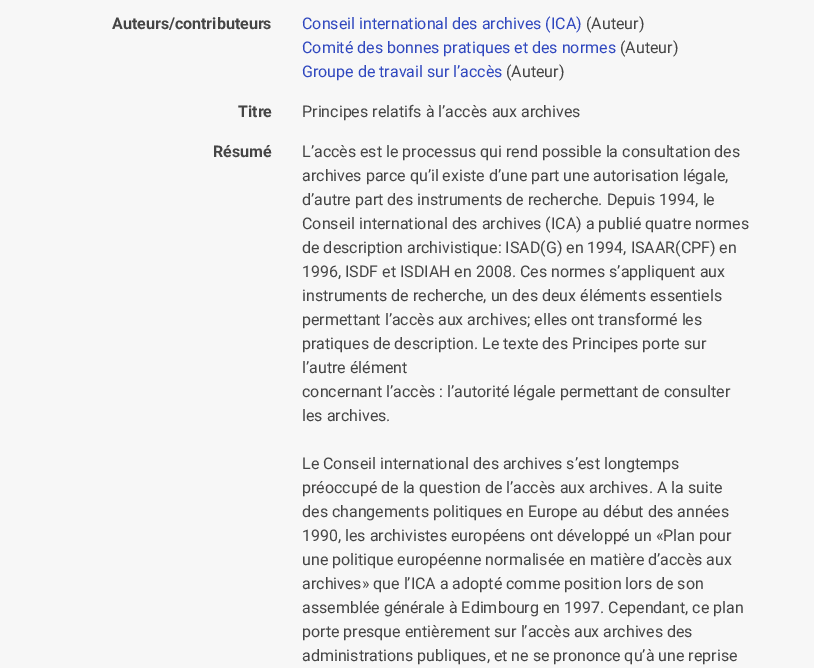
%!PS
<< /PageSize [814 668] >> setpagedevice
/co { dup -16 bitshift 255 div exch dup -8 bitshift 255 and 255 div exch 255 and 255 div setrgbcolor } def
/fn { [ exch dup neg 0 0 3 -1 roll 0 0 ] selectfont } def
/tx { co fn moveto show } def
/bx { co rectfill } def
0 668 translate 1 -1 scale
4 setmiterlimit
0 0 814 668 16#F7F7F7 bx
(Auteurs/contributeurs) 112 29 /Roboto-Bold 16 16#454545 tx
(Conseil international des archives \(ICA\)) 302 29 /Roboto-Regular 16 16#3048BF tx
(\(Auteur\)) 586 29 /Roboto-Regular 16 16#454545 tx
(Comité des bonnes pratiques et des normes) 302 53 /Roboto-Regular 16 16#3048BF tx
(\(Auteur\)) 620 53 /Roboto-Regular 16 16#454545 tx
(Groupe de travail sur l’accès) 302 77 /Roboto-Regular 16 16#3048BF tx
(\(Auteur\)) 506 77 /Roboto-Regular 16 16#454545 tx
(Titre) 238 117 /Roboto-Bold 16 16#454545 tx
(Principes relatifs à l’accès aux archives) 302 117 /Roboto-Regular 16 16#454545 tx
(Résumé) 213 157 /Roboto-Bold 16 16#454545 tx
(L’accès est le processus qui rend possible la consultation des) 302 157 /Roboto-Regular 16 16#454545 tx
(archives parce qu’il existe d’une part une autorisation légale,) 302 181 /Roboto-Regular 16 16#454545 tx
(d’autre part des instruments de recherche. Depuis 1994, le) 302 205 /Roboto-Regular 16 16#454545 tx
(Conseil international des archives \(ICA\) a publié quatre normes) 302 229 /Roboto-Regular 16 16#454545 tx
(de description archivistique: ISAD\(G\) en 1994, ISAAR\(CPF\) en) 302 253 /Roboto-Regular 16 16#454545 tx
(1996, ISDF et ISDIAH en 2008. Ces normes s’appliquent aux) 302 277 /Roboto-Regular 16 16#454545 tx
(instruments de recherche, un des deux éléments essentiels) 302 301 /Roboto-Regular 16 16#454545 tx
(permettant l’accès aux archives; elles ont transformé les) 302 325 /Roboto-Regular 16 16#454545 tx
(pratiques de description. Le texte des Principes porte sur) 302 349 /Roboto-Regular 16 16#454545 tx
(l’autre élément) 302 373 /Roboto-Regular 16 16#454545 tx
(concernant l’accès : l’autorité légale permettant de consulter) 302 397 /Roboto-Regular 16 16#454545 tx
(les archives.) 302 421 /Roboto-Regular 16 16#454545 tx
(Le Conseil international des archives s’est longtemps) 302 469 /Roboto-Regular 16 16#454545 tx
(préoccupé de la question de l’accès aux archives. A la suite) 302 493 /Roboto-Regular 16 16#454545 tx
(des changements politiques en Europe au début des années) 302 517 /Roboto-Regular 16 16#454545 tx
(1990, les archivistes européens ont développé un «Plan pour) 302 541 /Roboto-Regular 16 16#454545 tx
(une politique européenne normalisée en matière d’accès aux) 302 565 /Roboto-Regular 16 16#454545 tx
(archives» que l’ICA a adopté comme position lors de son) 302 589 /Roboto-Regular 16 16#454545 tx
(assemblée générale à Edimbourg en 1997. Cependant, ce plan) 302 613 /Roboto-Regular 16 16#454545 tx
(porte presque entièrement sur l’accès aux archives des) 302 637 /Roboto-Regular 16 16#454545 tx
(administrations publiques, et ne se prononce qu’à une reprise) 302 661 /Roboto-Regular 16 16#454545 tx
showpage
